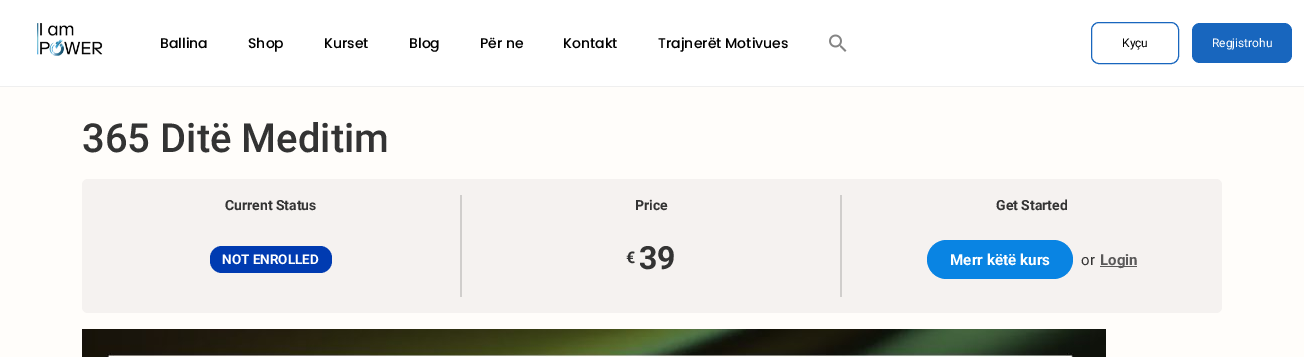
%!PS
<< /PageSize [1304 357] >> setpagedevice
/mt/moveto load def
/li/lineto load def
/cp/closepath load def
/fl/fill load def
/st/stroke load def
/co { dup -16 bitshift 255 div exch dup -8 bitshift 255 and 255 div exch 255 and 255 div setrgbcolor } def
/fn { [ exch dup neg 0 0 3 -1 roll 0 0 ] selectfont } def
/tx { co fn moveto show } def
/bx { co rectfill } def
/rr { 5 dict begin { /r /h /w /y /x } { exch def } forall
  x r add y moveto x w add y 2 copy h add r arct x w add y h add x 1 index r arct
  x y h add x y r arct x y 2 copy exch w add exch r arct closepath end } def
/im { 5 dict begin { /h /w /y /x /name } { exch def } forall
  gsave x y translate w h scale
  w h 8 [w 0 0 h 0 0] name (r) file false 3 colorimage grestore end } def
0 357 translate 1 -1 scale
4 setmiterlimit
0 0 1304 357 16#FFFDFA bx
0 0 1304 86 16#FFFFFF bx
0 86 1304 1 16#EFEFEF bx
(media/1.raw) 37 23 66 33 im
(media/2.raw) 829 34 18 18 im
16#1866BE co
1091.5 22.5 87 41 7.5 rr st
1192 23 100 40 8 rr fl
16#F5F2F0 co
82 179 1140 134 6 rr fl
460 195 2 102 16#D0CECC bx
16#003BB1 co
210 246 122 27 12 rr fl
840 195 2 102 16#D0CECC bx
16#0984E3 co
927 240 146 39 19.5 rr fl
1100 266 37 1 16#5A5959 bx
(media/3.raw) 82 329 1024 28 im
(Ballina) 160 48 /Poppins-Medium 14 16#000000 tx
(Shop) 248 48 /Poppins-Medium 14 16#000000 tx
(Kurset) 324 48 /Poppins-Medium 14 16#000000 tx
(Blog) 409 48 /Poppins-Medium 14 16#000000 tx
(Për ne) 480 48 /Poppins-Medium 14 16#000000 tx
(Kontakt) 563 48 /Poppins-Medium 14 16#000000 tx
(Trajnerët Motivues) 658 48 /Poppins-Medium 14 16#000000 tx
(Kyçu) 1122 47 /Roboto-Regular 12 16#000000 tx
(Regjistrohu) 1212 47 /Roboto-Regular 12 16#FFFFFF tx
(365 Ditë Meditim) 82 152 /Roboto-Medium 40 16#333333 tx
(Current Status) 225 210 /Roboto-Bold 14 16#333333 tx
(NOT ENROLLED) 222 264 /Roboto-Bold 13.5 16#FFFFFF tx
(Price) 635 210 /Roboto-Bold 14 16#333333 tx
(€) 626 263 /Roboto-Bold 16 16#333333 tx
(39) 639 269 /Roboto-Bold 32 16#333333 tx
(Get Started) 996 210 /Roboto-Bold 14 16#333333 tx
(Merr këtë kurs) 950 265 /Roboto-Bold 15.25 16#FFFFFF tx
(or) 1081 265 /Roboto-Regular 15 16#333333 tx
(Login) 1100 265 /Roboto-Bold 15 16#5A5959 tx
16#003BB1 co
222.5 250.5 mt 222 251 li 225.5 254.5 li 229 251 li 228.5 250.5 li 225.5 253.5 li cp fl
showpage
